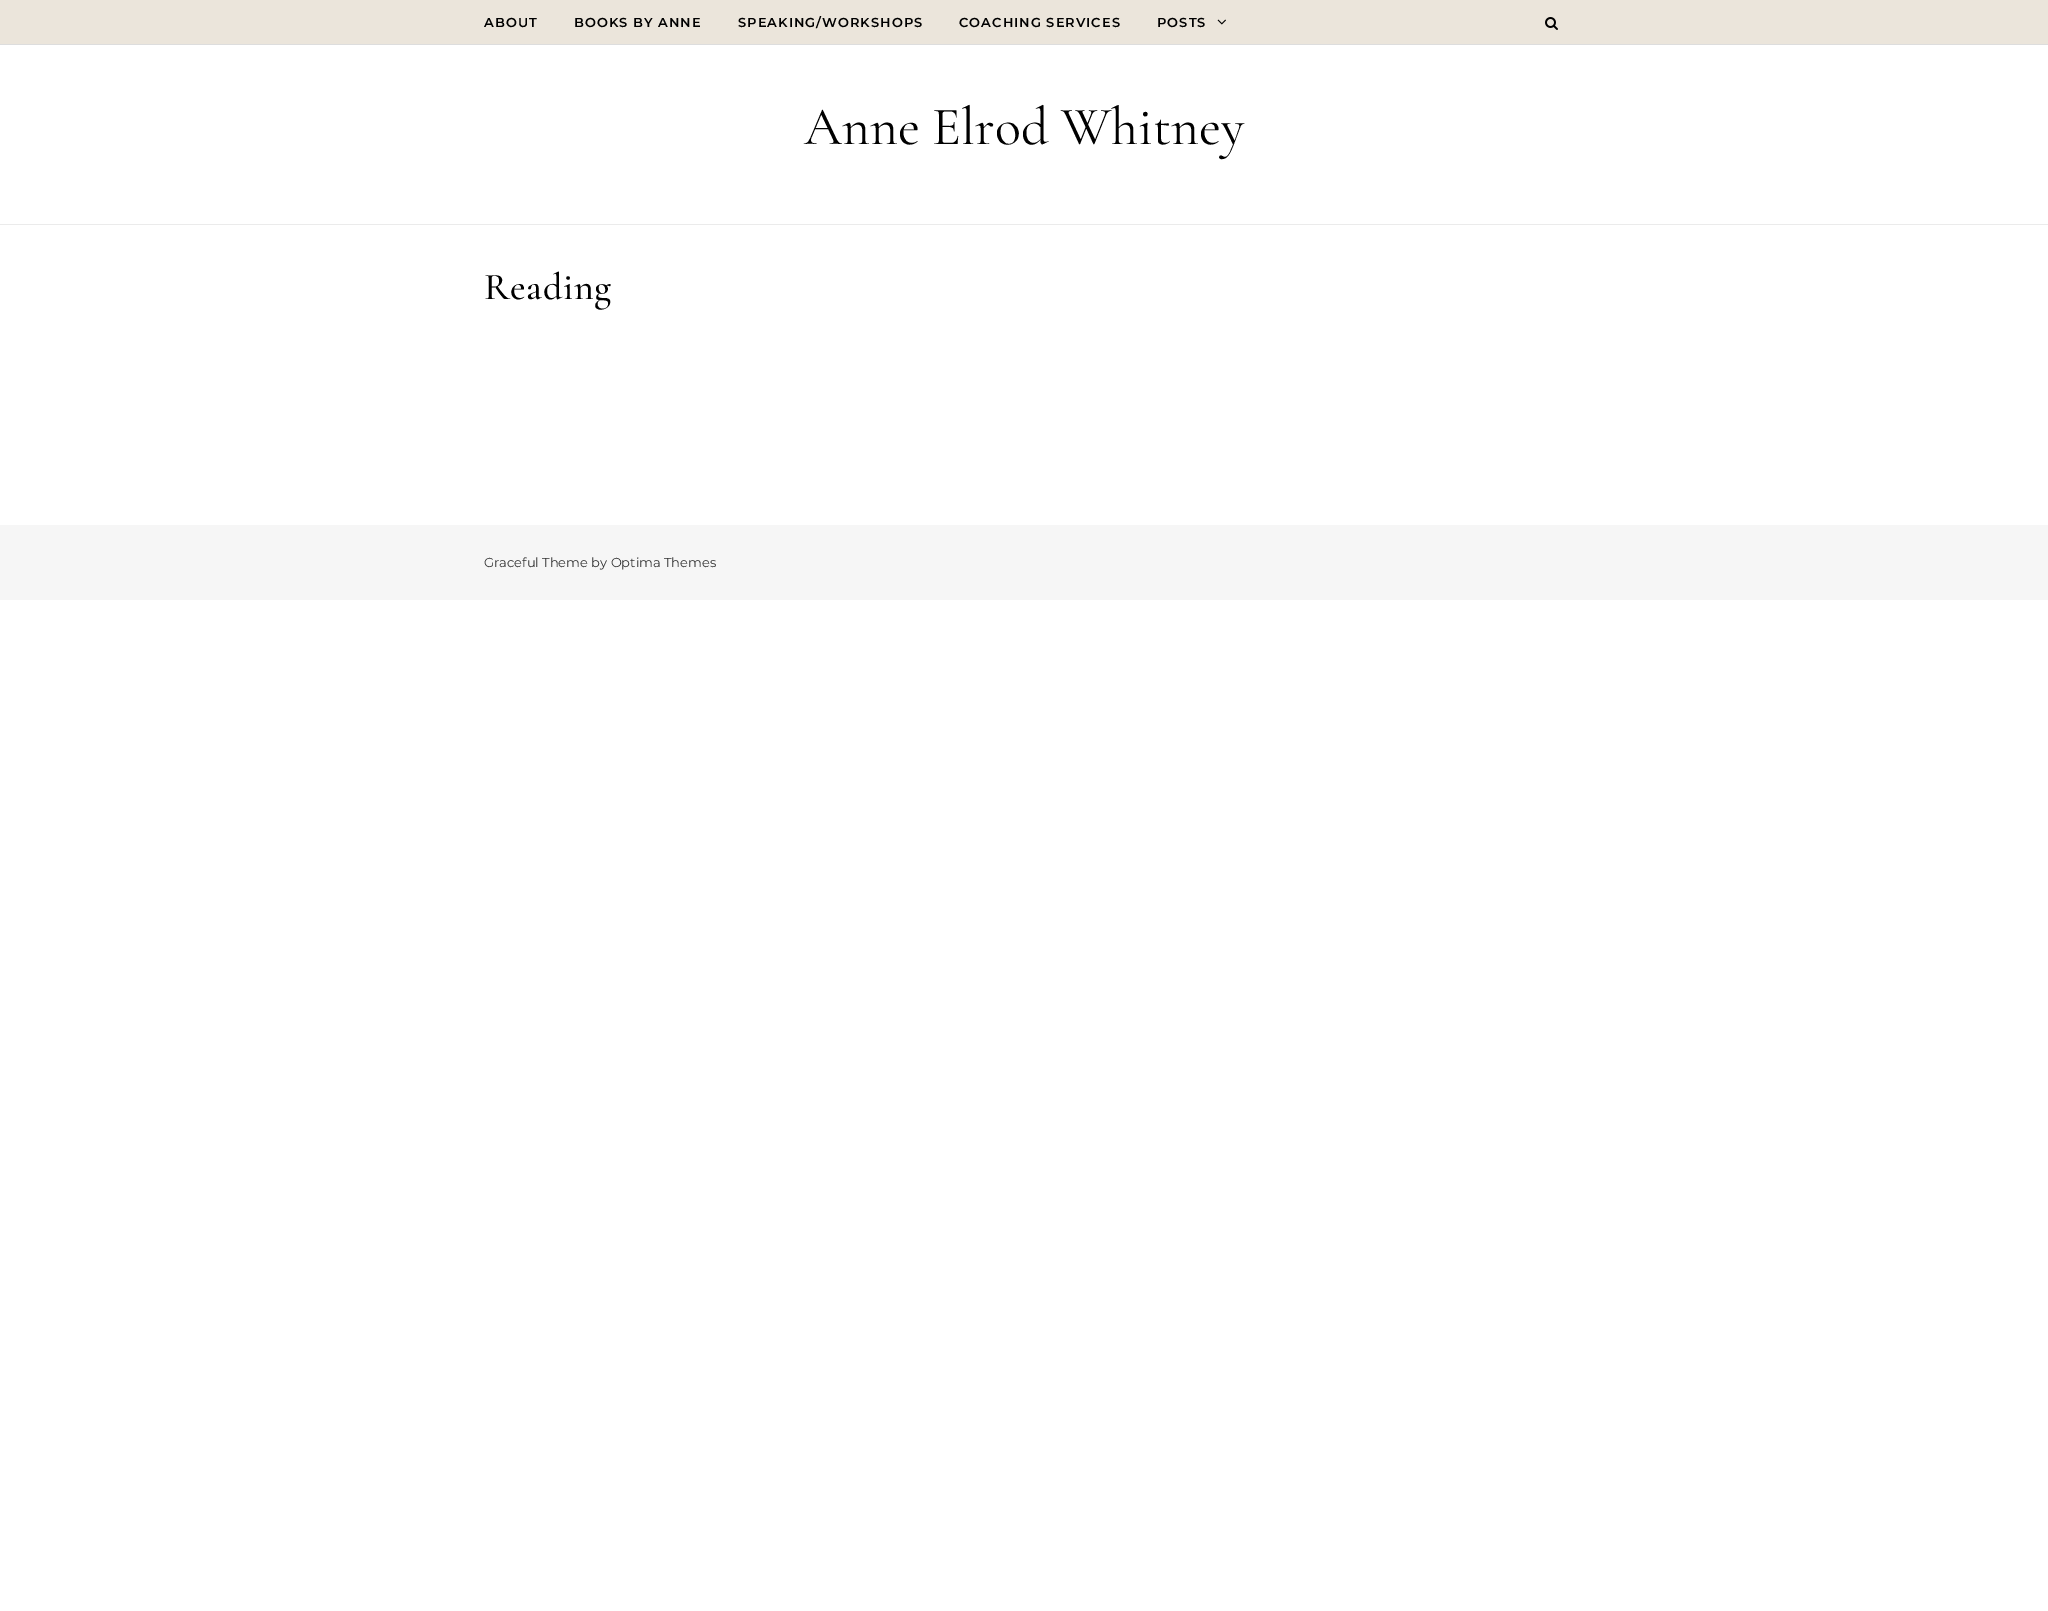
%!PS
<< /PageSize [2048 1611] >> setpagedevice
/mt/moveto load def
/co { dup -16 bitshift 255 div exch dup -8 bitshift 255 and 255 div exch 255 and 255 div setrgbcolor } def
/fn { [ exch dup neg 0 0 3 -1 roll 0 0 ] selectfont } def
/tx { co fn moveto show } def
/bx { co rectfill } def
/im { 5 dict begin { /h /w /y /x /name } { exch def } forall
  gsave x y translate w h scale
  w h 8 [w 0 0 h 0 0] name (r) file false 3 colorimage grestore end } def
0 1611 translate 1 -1 scale
4 setmiterlimit
0 0 2048 1611 16#FFFFFF bx
0 0 2048 44 16#EBE5DB bx
0 44 2048 1 16#DDDDDD bx
(media/1.raw) 1217 19 9 6 im
(media/2.raw) 1545 17 13 13 im
0 224 2048 1 16#EBEBEB bx
0 525 2048 75 16#F6F6F6 bx
/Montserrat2-Thin 13 fn
16#000000 co
484 27 mt 1 0 (ABOUT) ashow
574 27 mt 1 0 (BOOKS BY ANNE) ashow
738 27 mt 1 0 (SPEAKING/WORKSHOPS) ashow
959 27 mt 1 0 (COACHING SERVICES) ashow
1157 27 mt 1 0 (POSTS) ashow
(Anne Elrod Whitney) 804 144 /CormorantGaramond-Regular 54 16#000000 tx
/CormorantGaramond-Medium 38 fn
484 299 mt .5 0 (Reading) ashow
(Graceful Theme by Optima Themes) 484 567 /Montserrat-Thin 13 16#333333 tx
showpage
